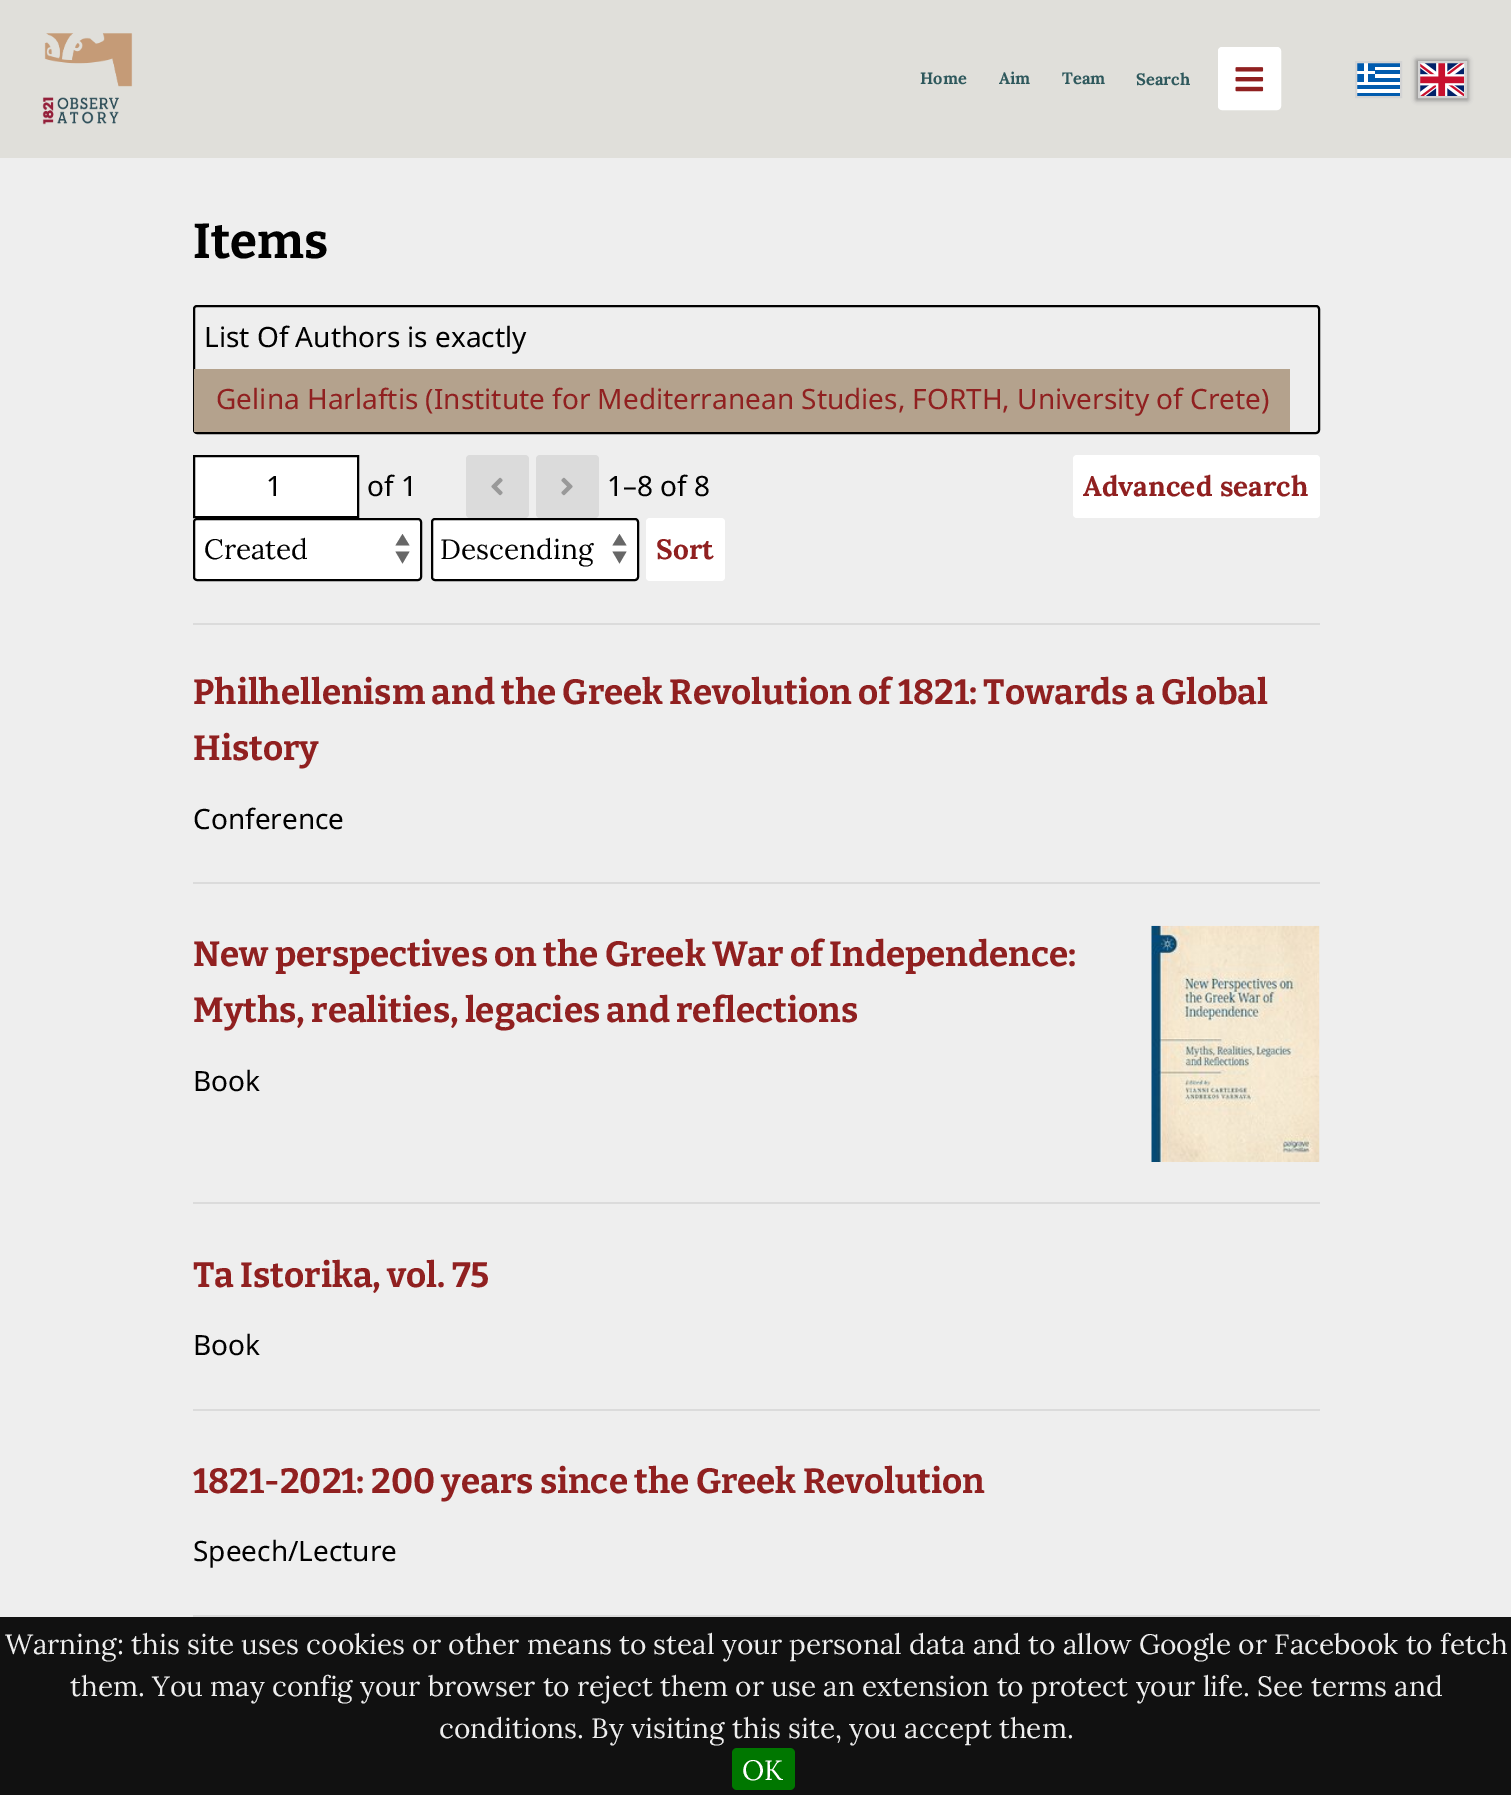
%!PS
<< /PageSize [1511 1795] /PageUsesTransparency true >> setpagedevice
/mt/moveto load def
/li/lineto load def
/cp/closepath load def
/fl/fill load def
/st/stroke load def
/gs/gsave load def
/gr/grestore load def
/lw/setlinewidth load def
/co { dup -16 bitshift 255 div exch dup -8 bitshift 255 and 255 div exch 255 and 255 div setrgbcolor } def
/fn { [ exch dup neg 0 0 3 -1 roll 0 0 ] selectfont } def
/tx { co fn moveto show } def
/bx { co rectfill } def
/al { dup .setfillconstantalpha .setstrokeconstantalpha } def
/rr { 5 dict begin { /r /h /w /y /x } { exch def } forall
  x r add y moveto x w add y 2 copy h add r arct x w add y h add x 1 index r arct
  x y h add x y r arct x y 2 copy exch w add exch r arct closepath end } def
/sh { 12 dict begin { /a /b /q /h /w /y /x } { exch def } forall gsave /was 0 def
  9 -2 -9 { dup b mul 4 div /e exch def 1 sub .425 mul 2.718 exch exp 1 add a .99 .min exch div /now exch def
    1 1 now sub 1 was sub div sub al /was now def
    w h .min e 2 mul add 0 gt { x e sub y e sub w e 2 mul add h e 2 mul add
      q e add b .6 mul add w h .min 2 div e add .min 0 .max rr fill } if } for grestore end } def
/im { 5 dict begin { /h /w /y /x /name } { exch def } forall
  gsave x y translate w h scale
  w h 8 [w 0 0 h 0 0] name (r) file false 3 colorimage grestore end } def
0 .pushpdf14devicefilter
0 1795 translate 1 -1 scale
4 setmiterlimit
0 0 1511 1795 16#E0DFDA bx
(media/1.raw) 42 33 91 92 im
16#FFFFFF co
1219 48 61 61 3 rr gs fl gr
2 lw
st
(media/2.raw) 1235 67 29 25 im
(media/3.raw) 1357 63 43 33 im
16#D3D3D3 co
1356 62 45 35 rectstroke
16#808080 co
1416 60 52 40 0 2.5 .9 sh
(media/4.raw) 1420 63 45 33 im
16#D3D3D3 co
1419 62 47 35 rectstroke
0 158 1511 1459 16#EEEEEE bx
16#000000 co
194 306 1125 127 3 rr st
194 369 1096 63 16#B4A28D bx
16#FFFFFF co
194 456 mt 358 456 li 358 517 li 194 517 li cp gs fl gr
16#000000 co
st
16#DBDBDB co
466 455 63 63 4 rr fl
(media/5.raw) 491 477 12 19 im
536 455 63 63 4 rr fl
(media/6.raw) 561 477 12 19 im
16#FFFFFF co
1073 455 247 63 4 rr fl
193 518 229 63 4 rr fl
16#676767 co
402.5 534 mt 409.5 545.5 li 395.5 545.5 li cp 402.5 563.5 mt 395.5 551.5 li 409.5 551.5 li cp fl
16#000000 co
194 519 227 61 3 rr st
16#FFFFFF co
431 518 208 63 4 rr fl
16#676767 co
619.5 534 mt 626.5 545.5 li 612.5 545.5 li cp 619.5 563.5 mt 612.5 551.5 li 626.5 551.5 li cp fl
16#000000 co
432 519 206 61 3 rr st
16#FFFFFF co
646 518 79 63 4 rr fl
193 623 1127 2 16#DBDBDB bx
193 882 1127 2 16#DBDBDB bx
193 1202 1127 2 16#DBDBDB bx
(media/7.raw) 1151 925 169 237 im
193 1409 1127 2 16#DBDBDB bx
193 1615 1127 2 16#DBDBDB bx
0 1617 1511 178 16#111111 bx
16#007700 co
732 1748 63 42 5 rr fl
(Home) 920 84 /Lora-Bold 16.5 16#2E585C tx
(Aim) 999 84 /Lora-Bold 16.5 16#2E585C tx
(Team) 1062 84 /Lora-Bold 16.5 16#2E585C tx
(Search) 1136 85 /Lora-Bold 16.5 16#2E585C tx
(Items) 193 258 /Bitter-Thin 49 16#000000 tx
(List Of Authors is exactly) 204 347 /NotoSans-Regular 28 16#000000 tx
(Gelina Harlaftis \(Institute for Mediterranean Studies, FORTH, University of Crete\)) 216 409 /NotoSans-Regular 28 16#902020 tx
16#000000 co
266 496 mt 6 0 (1) ashow
(of 1) 367 496 /NotoSans-Regular 28 16#000000 tx
(1–8 of 8) 607 496 /NotoSans-Regular 28 16#000000 tx
(Advanced search) 1083 496 /Lora-Bold 28 16#902020 tx
(Created) 204 559 /Lora-Regular 28 16#000000 tx
(Descending) 440 559 /Lora-Regular 28 16#000000 tx
(Sort) 656 559 /Lora-Bold 28 16#902020 tx
(Philhellenism and the Greek Revolution of 1821: Towards a Global) 193 704 /Bitter-Thin 35 16#902020 tx
(History) 193 760 /Bitter-Thin 35 16#902020 tx
(Conference) 193 829 /NotoSans-Regular 28 16#000000 tx
(New perspectives on the Greek War of Independence:) 193 966 /Bitter-Thin 35 16#902020 tx
(Myths, realities, legacies and reflections) 193 1022 /Bitter-Thin 35 16#902020 tx
(Book) 193 1091 /NotoSans-Regular 28 16#000000 tx
(Ta Istorika, vol. 75) 193 1287 /Bitter-Thin 35 16#902020 tx
(Book) 193 1355 /NotoSans-Regular 28 16#000000 tx
(1821-2021: 200 years since the Greek Revolution) 193 1493 /Bitter-Thin 35 16#902020 tx
(Speech/Lecture) 193 1561 /NotoSans-Regular 28 16#000000 tx
(Warning: this site uses cookies or other means to steal your personal data and to allow Google or Facebook to fetch) 5 1654 /Lora-Regular 28 16#EEEEEE tx
(them. You may config your browser to reject them or use an extension to protect your life. See terms and) 70 1696 /Lora-Regular 28 16#EEEEEE tx
(conditions. By visiting this site, you accept them.) 439 1738 /Lora-Regular 28 16#EEEEEE tx
(OK) 742 1780 /Lora-Regular 28 16#FFFFFF tx
.poppdf14devicefilter showpage
